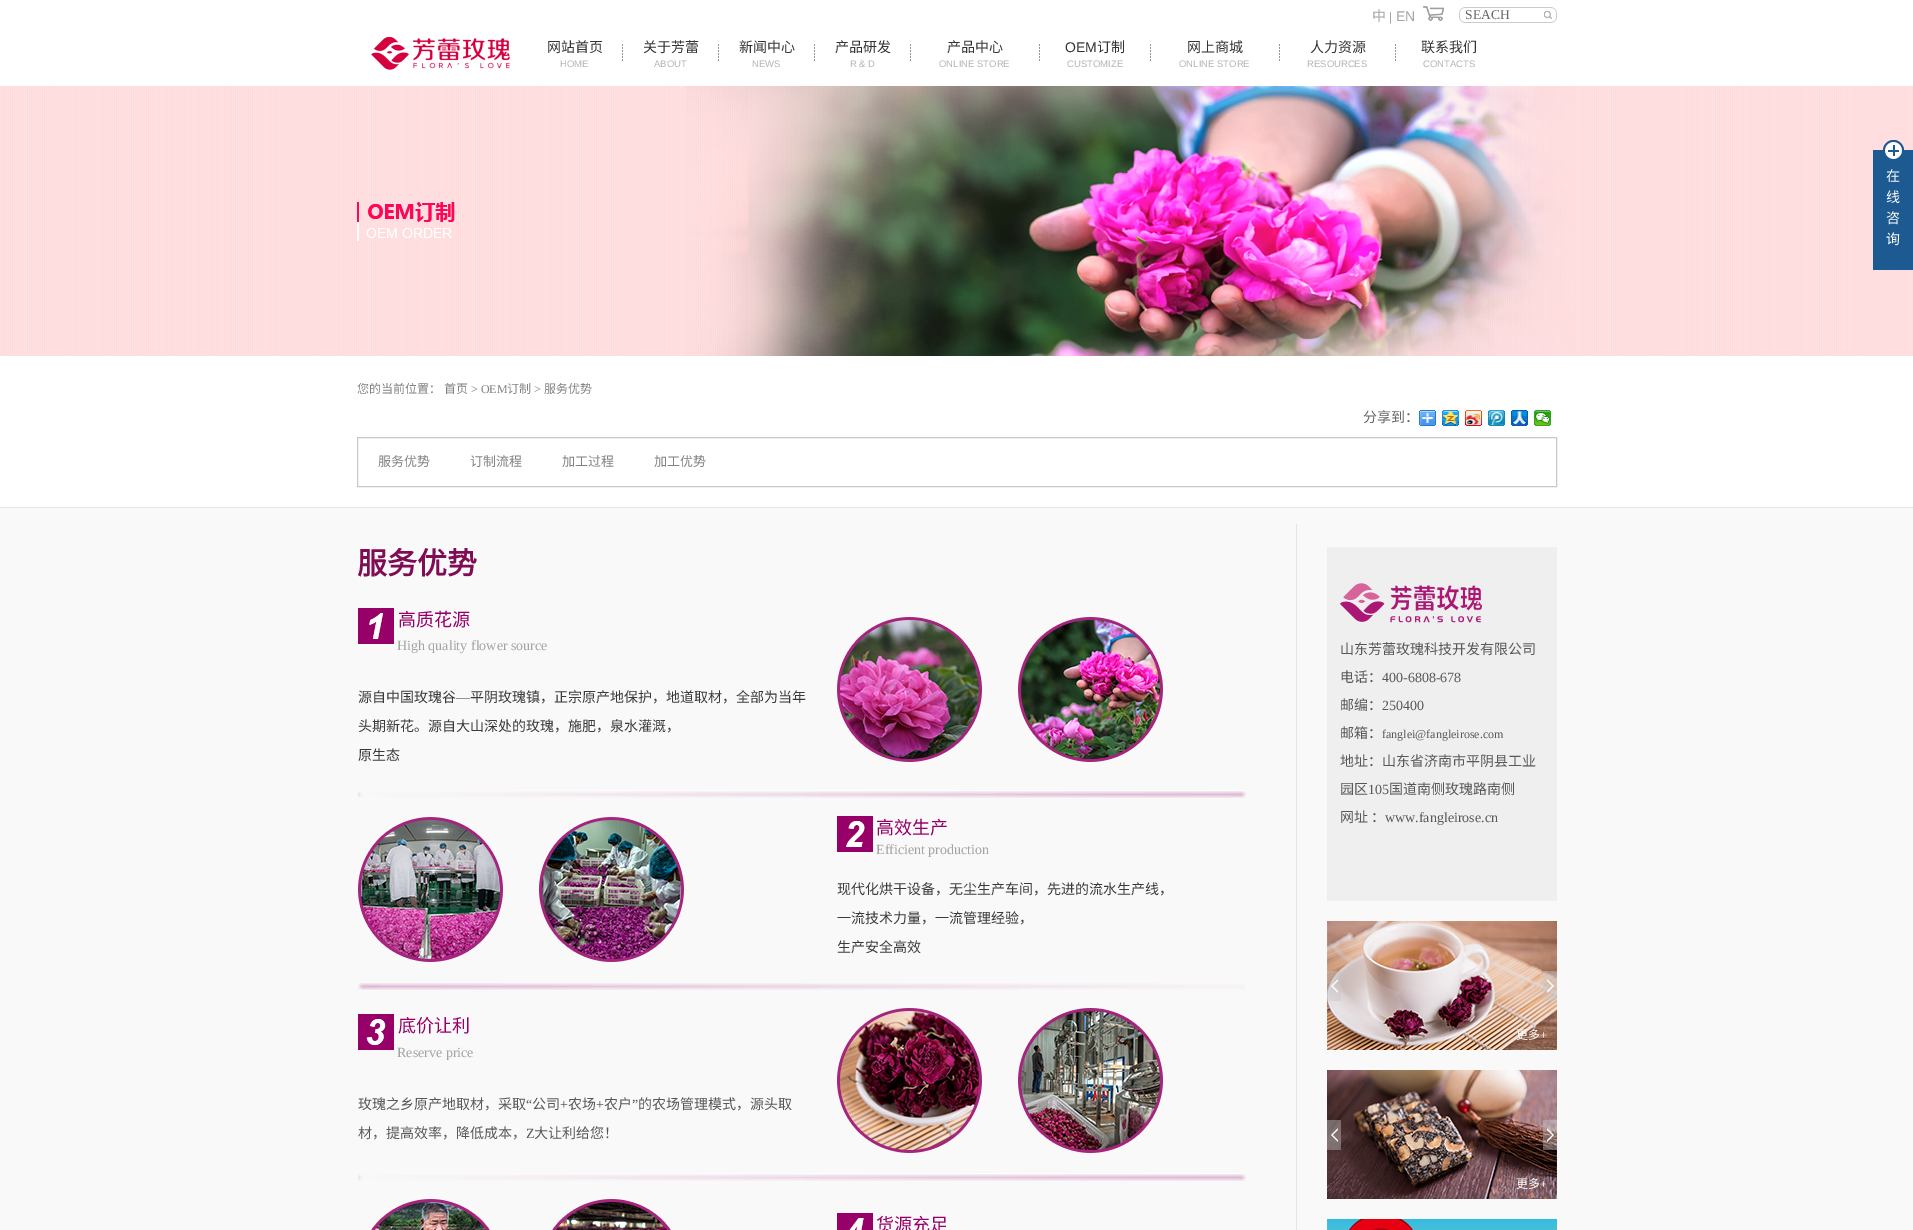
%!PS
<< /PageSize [1913 1230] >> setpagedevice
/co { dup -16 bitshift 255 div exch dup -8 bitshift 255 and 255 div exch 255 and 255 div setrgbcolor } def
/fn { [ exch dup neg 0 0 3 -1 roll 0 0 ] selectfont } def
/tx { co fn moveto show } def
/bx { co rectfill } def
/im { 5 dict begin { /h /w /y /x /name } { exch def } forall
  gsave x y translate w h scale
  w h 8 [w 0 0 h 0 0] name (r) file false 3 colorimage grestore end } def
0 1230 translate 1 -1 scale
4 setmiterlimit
0 0 1913 1230 16#FFFFFF bx
(media/1.raw) 371 37 139 33 im
(media/2.raw) 1423 6 21 15 im
(media/3.raw) 1459 7 98 16 im
(media/4.raw) 622 44 1 17 im
(media/4.raw) 718 44 1 17 im
(media/4.raw) 814 44 1 17 im
(media/4.raw) 910 44 1 17 im
(media/4.raw) 1039 44 1 17 im
(media/4.raw) 1150 44 1 17 im
(media/4.raw) 1279 44 1 17 im
(media/4.raw) 1395 44 1 17 im
(media/5.raw) 0 86 1913 270 im
(media/6.raw) 1883 140 21 10 im
1873 150 40 120 16#1C5A91 bx
(media/7.raw) 1883 140 21 19 im
(media/8.raw) 1419 410 17 16 im
(media/9.raw) 1442 410 17 16 im
(media/10.raw) 1465 410 17 16 im
(media/11.raw) 1488 410 17 16 im
(media/12.raw) 1511 410 17 16 im
(media/13.raw) 1534 410 17 16 im
16#C9C9C9 co
357.5 437.5 1199 49 rectstroke
0 508 1913 722 16#F9F9F9 bx
0 507 1913 1 16#E5E5E5 bx
(media/14.raw) 358 608 36 36 im
(media/15.raw) 837 617 326 145 im
(media/16.raw) 358 790 888 8 im
(media/17.raw) 358 817 326 145 im
(media/18.raw) 837 816 36 36 im
(media/19.raw) 358 983 887 7 im
(media/20.raw) 358 1014 36 36 im
(media/21.raw) 837 1008 326 145 im
(media/16.raw) 358 1173 888 8 im
(media/22.raw) 371 1199 300 31 im
(media/23.raw) 837 1213 36 17 im
1296 524 1 706 16#E5E5E5 bx
1327 547 230 354 16#EFEFEF bx
(media/24.raw) 1340 583 143 40 im
(media/27.raw) 1327 921 230 129 im
(media/25.raw) 1327 971 14 30 im
(media/26.raw) 1543 971 14 30 im
(media/30.raw) 1327 1070 230 129 im
(media/28.raw) 1327 1120 14 30 im
(media/29.raw) 1543 1120 14 30 im
(media/31.raw) 1327 1219 230 11 im
(中) 1372 21 /NotoSansCJKSC-Regular 14 16#A3A3A3 tx
(|) 1389 21 /LiberationSans-Regular 12 16#A3A3A3 tx
(EN) 1396 21 /LiberationSans-Regular 14 16#A3A3A3 tx
(SEACH) 1465 19 /LiberationSerif-Regular 13.5 16#666666 tx
(网站首页) 547 52 /NotoSansCJKSC-Regular 14 16#333333 tx
(HOME) 560 67 /LiberationSans-Regular 9.5 16#B5B5B5 tx
(关于芳蕾) 643 52 /NotoSansCJKSC-Regular 14 16#333333 tx
(ABOUT) 654 67 /LiberationSans-Regular 9.5 16#B5B5B5 tx
(新闻中心) 739 52 /NotoSansCJKSC-Regular 14 16#333333 tx
(NEWS) 752 67 /LiberationSans-Regular 9.5 16#B5B5B5 tx
(产品研发) 835 52 /NotoSansCJKSC-Regular 14 16#333333 tx
(R & D) 850 67 /LiberationSans-Regular 9.5 16#B5B5B5 tx
(产品中心) 947 52 /NotoSansCJKSC-Regular 14 16#333333 tx
(ONLINE STORE) 939 67 /LiberationSans-Regular 9.5 16#B5B5B5 tx
(OEM) 1065 52 /LiberationSans-Regular 14 16#333333 tx
(订制) 1097 52 /NotoSansCJKSC-Regular 14 16#333333 tx
(CUSTOMIZE) 1067 67 /LiberationSans-Regular 9.5 16#B5B5B5 tx
(网上商城) 1187 52 /NotoSansCJKSC-Regular 14 16#333333 tx
(ONLINE STORE) 1179 67 /LiberationSans-Regular 9.5 16#B5B5B5 tx
(人力资源) 1310 52 /NotoSansCJKSC-Regular 14 16#333333 tx
(RESOURCES) 1307 67 /LiberationSans-Regular 9.5 16#B5B5B5 tx
(联系我们) 1421 52 /NotoSansCJKSC-Regular 14 16#333333 tx
(CONTACTS) 1423 67 /LiberationSans-Regular 9.5 16#B5B5B5 tx
(在) 1886 181 /NotoSansCJKSC-Regular 14 16#FFFFFF tx
(线) 1886 202 /NotoSansCJKSC-Regular 14 16#FFFFFF tx
(咨) 1886 223 /NotoSansCJKSC-Regular 14 16#FFFFFF tx
(询) 1886 244 /NotoSansCJKSC-Regular 14 16#FFFFFF tx
(您的当前位置：) 357 393 /NotoSansCJKSC-Regular 12 16#828282 tx
(首页) 444 393 /NotoSansCJKSC-Regular 12 16#828282 tx
(> OEM) 471 393 /LiberationSerif-Regular 12 16#828282 tx
(订制) 507 393 /NotoSansCJKSC-Regular 12 16#828282 tx
(>) 534 393 /LiberationSerif-Regular 12 16#828282 tx
(服务优势) 544 393 /NotoSansCJKSC-Regular 12 16#828282 tx
(分享到：) 1363 422 /NotoSansCJKSC-Regular 14 16#666666 tx
(服务优势) 378 466 /NotoSansCJKSC-Regular 13 16#828282 tx
(订制流程) 470 466 /NotoSansCJKSC-Regular 13 16#828282 tx
(加工过程) 562 466 /NotoSansCJKSC-Regular 13 16#828282 tx
(加工优势) 654 466 /NotoSansCJKSC-Regular 13 16#828282 tx
(服务优势) 357 574 /NotoSansCJKSC-Bold 30 16#7F0C55 tx
(高质花源) 398 626 /NotoSansCJKSC-Regular 18 16#970068 tx
(High quality flower source) 397 650 /LiberationSerif-Regular 14 16#A3A3A3 tx
(源自中国玫瑰谷) 358 702 /NotoSansCJKSC-Regular 14 16#3A3A3A tx
(—) 456 702 /LiberationSerif-Regular 14 16#3A3A3A tx
(平阴玫瑰镇，正宗原产地保护，地道取材，全部为当年) 470 702 /NotoSansCJKSC-Regular 14 16#3A3A3A tx
(头期新花。源自大山深处的玫瑰，施肥，泉水灌溉，) 358 731 /NotoSansCJKSC-Regular 14 16#3A3A3A tx
(原生态) 358 760 /NotoSansCJKSC-Regular 14 16#3A3A3A tx
(高效生产) 876 834 /NotoSansCJKSC-Regular 18 16#970068 tx
(Efficient production) 876 854 /LiberationSerif-Regular 14 16#A3A3A3 tx
(现代化烘干设备，无尘生产车间，先进的流水生产线，) 837 894 /NotoSansCJKSC-Regular 14 16#3A3A3A tx
(一流技术力量，一流管理经验，) 837 923 /NotoSansCJKSC-Regular 14 16#3A3A3A tx
(生产安全高效) 837 952 /NotoSansCJKSC-Regular 14 16#3A3A3A tx
(底价让利) 398 1032 /NotoSansCJKSC-Regular 18 16#970068 tx
(Reserve price) 397 1057 /LiberationSerif-Regular 14 16#A3A3A3 tx
(玫瑰之乡原产地取材，采取) 358 1109 /NotoSansCJKSC-Regular 14 16#585858 tx
(“) 526 1109 /LiberationSerif-Regular 14 16#585858 tx
(公司) 532 1109 /NotoSansCJKSC-Regular 14 16#585858 tx
(+) 560 1109 /LiberationSerif-Regular 14 16#585858 tx
(农场) 568 1109 /NotoSansCJKSC-Regular 14 16#585858 tx
(+) 596 1109 /LiberationSerif-Regular 14 16#585858 tx
(农户) 604 1109 /NotoSansCJKSC-Regular 14 16#585858 tx
(”) 632 1109 /LiberationSerif-Regular 14 16#585858 tx
(的农场管理模式，源头取) 638 1109 /NotoSansCJKSC-Regular 14 16#585858 tx
(材，提高效率，降低成本，) 358 1138 /NotoSansCJKSC-Regular 14 16#585858 tx
(Z) 526 1138 /LiberationSerif-Regular 14 16#585858 tx
(大让利给您！) 534 1138 /NotoSansCJKSC-Regular 14 16#585858 tx
(货源充足) 876 1231 /NotoSansCJKSC-Regular 18 16#970068 tx
(山东芳蕾玫瑰科技开发有限公司) 1340 654 /NotoSansCJKSC-Regular 14 16#585858 tx
(电话：) 1340 682 /NotoSansCJKSC-Regular 14 16#585858 tx
(400-6808-678) 1382 682 /LiberationSerif-Regular 14 16#585858 tx
(邮编：) 1340 710 /NotoSansCJKSC-Regular 14 16#585858 tx
(250400) 1382 710 /LiberationSerif-Regular 14 16#585858 tx
(邮箱：) 1340 738 /NotoSansCJKSC-Regular 14 16#585858 tx
(fanglei@fangleirose.com) 1382 738 /LiberationSerif-Regular 12 16#585858 tx
(地址：山东省济南市平阴县工业) 1340 766 /NotoSansCJKSC-Regular 14 16#585858 tx
(园区) 1340 794 /NotoSansCJKSC-Regular 14 16#585858 tx
(105) 1368 794 /LiberationSerif-Regular 14 16#585858 tx
(国道南侧玫瑰路南侧) 1389 794 /NotoSansCJKSC-Regular 14 16#585858 tx
(网址 ：) 1340 822 /NotoSansCJKSC-Regular 14 16#585858 tx
(www.fangleirose.cn) 1385 822 /LiberationSerif-Regular 14 16#585858 tx
(更多) 1516 1039 /NotoSansCJKSC-Regular 12 16#FFFFFF tx
(+) 1540 1039 /LiberationSerif-Regular 12 16#FFFFFF tx
(更多) 1516 1188 /NotoSansCJKSC-Regular 12 16#FFFFFF tx
(+) 1540 1188 /LiberationSerif-Regular 12 16#FFFFFF tx
showpage
